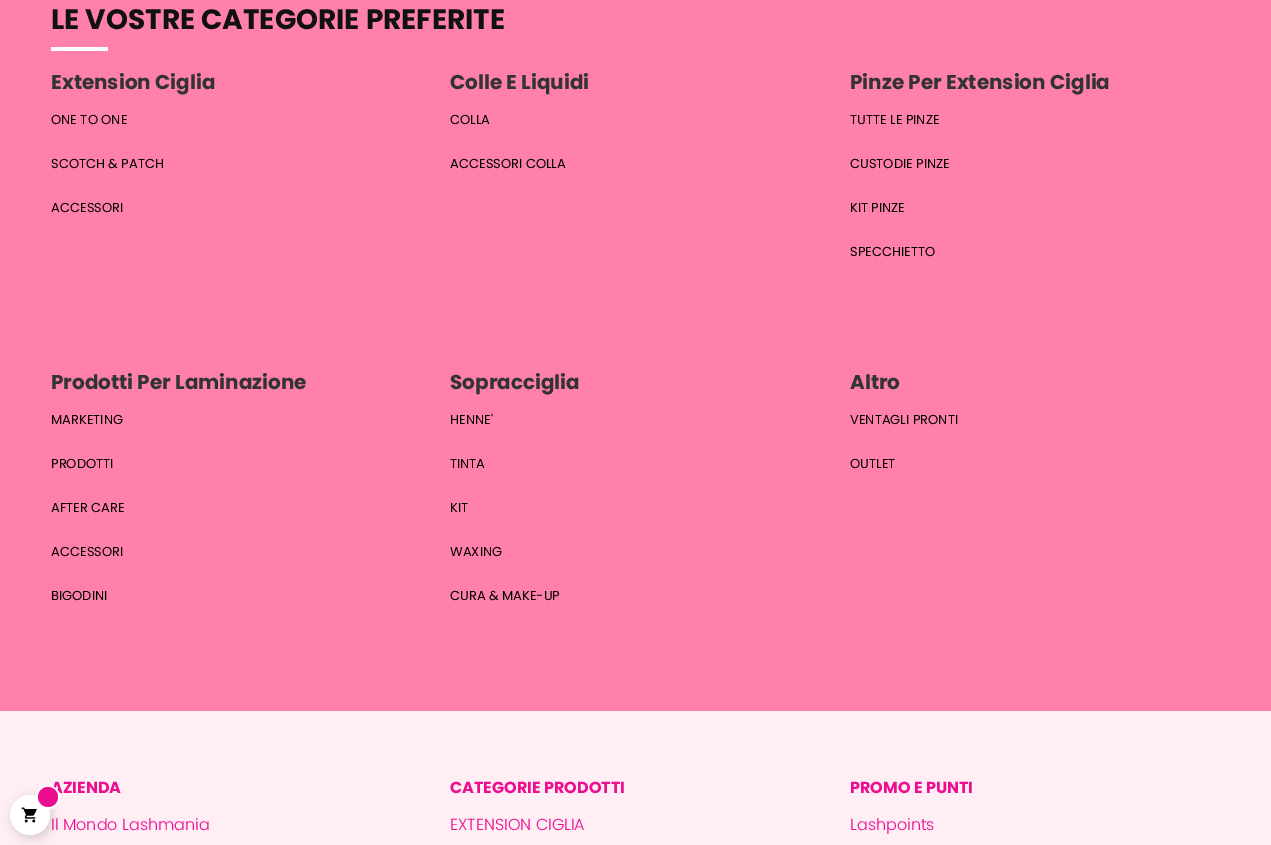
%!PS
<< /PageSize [1271 845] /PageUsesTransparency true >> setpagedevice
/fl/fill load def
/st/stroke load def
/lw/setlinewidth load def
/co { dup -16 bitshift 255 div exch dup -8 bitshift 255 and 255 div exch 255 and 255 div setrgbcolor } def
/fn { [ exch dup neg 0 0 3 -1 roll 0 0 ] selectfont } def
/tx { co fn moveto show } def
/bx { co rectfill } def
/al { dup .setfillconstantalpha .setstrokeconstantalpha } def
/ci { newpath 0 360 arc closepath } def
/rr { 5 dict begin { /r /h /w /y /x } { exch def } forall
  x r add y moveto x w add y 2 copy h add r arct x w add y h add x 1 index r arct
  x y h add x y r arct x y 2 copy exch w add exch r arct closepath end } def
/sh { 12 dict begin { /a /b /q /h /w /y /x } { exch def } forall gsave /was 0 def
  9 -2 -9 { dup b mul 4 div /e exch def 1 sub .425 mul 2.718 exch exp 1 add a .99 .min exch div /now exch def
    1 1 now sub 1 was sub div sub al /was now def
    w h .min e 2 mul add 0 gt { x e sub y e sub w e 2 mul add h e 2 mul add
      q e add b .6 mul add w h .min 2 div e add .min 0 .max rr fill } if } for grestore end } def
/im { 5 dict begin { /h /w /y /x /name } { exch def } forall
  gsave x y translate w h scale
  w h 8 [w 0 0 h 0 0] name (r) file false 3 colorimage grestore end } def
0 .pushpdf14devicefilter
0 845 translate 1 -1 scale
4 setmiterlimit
0 0 1271 845 16#FF80AB bx
0 711 1271 134 16#FFEEF4 bx
16#000000 co
12 798 40 40 20 5 .15 sh
16#FFFFFF co
30 815 20 ci fl
(media/1.raw) 21 807 16 16 im
51 47 57 4 16#FFFFFF bx
(LE VOSTRE CATEGORIE PREFERITE) 51 29 /Poppins-Bold 28 16#111111 tx
(Extension Ciglia) 51 89 /Poppins-Bold 20 16#333333 tx
(ONE TO ONE) 51 124 /Poppins-Regular 13 16#000000 tx
(SCOTCH & PATCH) 51 168 /Poppins-Regular 13 16#000000 tx
(ACCESSORI) 51 212 /Poppins-Regular 13 16#000000 tx
(Colle E Liquidi) 450 89 /Poppins-Bold 20 16#333333 tx
(COLLA) 450 124 /Poppins-Regular 13 16#000000 tx
(ACCESSORI COLLA) 450 168 /Poppins-Regular 13 16#000000 tx
(Pinze Per Extension Ciglia) 850 89 /Poppins-Bold 20 16#333333 tx
(TUTTE LE PINZE) 850 124 /Poppins-Regular 13 16#000000 tx
(CUSTODIE PINZE) 850 168 /Poppins-Regular 13 16#000000 tx
(KIT PINZE) 850 212 /Poppins-Regular 13 16#000000 tx
(SPECCHIETTO) 850 256 /Poppins-Regular 13 16#000000 tx
(Prodotti Per Laminazione) 51 389 /Poppins-Bold 20 16#333333 tx
(MARKETING) 51 424 /Poppins-Regular 13 16#000000 tx
(PRODOTTI) 51 468 /Poppins-Regular 13 16#000000 tx
(AFTER CARE) 51 512 /Poppins-Regular 13 16#000000 tx
(ACCESSORI) 51 556 /Poppins-Regular 13 16#000000 tx
(BIGODINI) 51 600 /Poppins-Regular 13 16#000000 tx
(Sopracciglia) 450 389 /Poppins-Bold 20 16#333333 tx
(HENNE') 450 424 /Poppins-Regular 13 16#000000 tx
(TINTA) 450 468 /Poppins-Regular 13 16#000000 tx
(KIT) 450 512 /Poppins-Regular 13 16#000000 tx
(WAXING) 450 556 /Poppins-Regular 13 16#000000 tx
(CURA & MAKE-UP) 450 600 /Poppins-Regular 13 16#000000 tx
(Altro) 850 389 /Poppins-Bold 20 16#333333 tx
(VENTAGLI PRONTI) 850 424 /Poppins-Regular 13 16#000000 tx
(OUTLET) 850 468 /Poppins-Regular 13 16#000000 tx
(AZIENDA) 51 793 /Poppins-Bold 16 16#ED0D91 tx
16#FFFFFF co
2 lw
48 797 11 ci st
16#ED0D91 co
48 797 10 ci fl
(Il Mondo Lashmania) 51 830 /Poppins-Light 16 16#ED0D91 tx
(CATEGORIE PRODOTTI) 450 793 /Poppins-Bold 16 16#ED0D91 tx
(EXTENSION CIGLIA) 450 830 /Poppins-Light 16 16#ED0D91 tx
(PROMO E PUNTI) 850 793 /Poppins-Bold 16 16#ED0D91 tx
(Lashpoints) 850 830 /Poppins-Light 16 16#ED0D91 tx
.poppdf14devicefilter showpage
